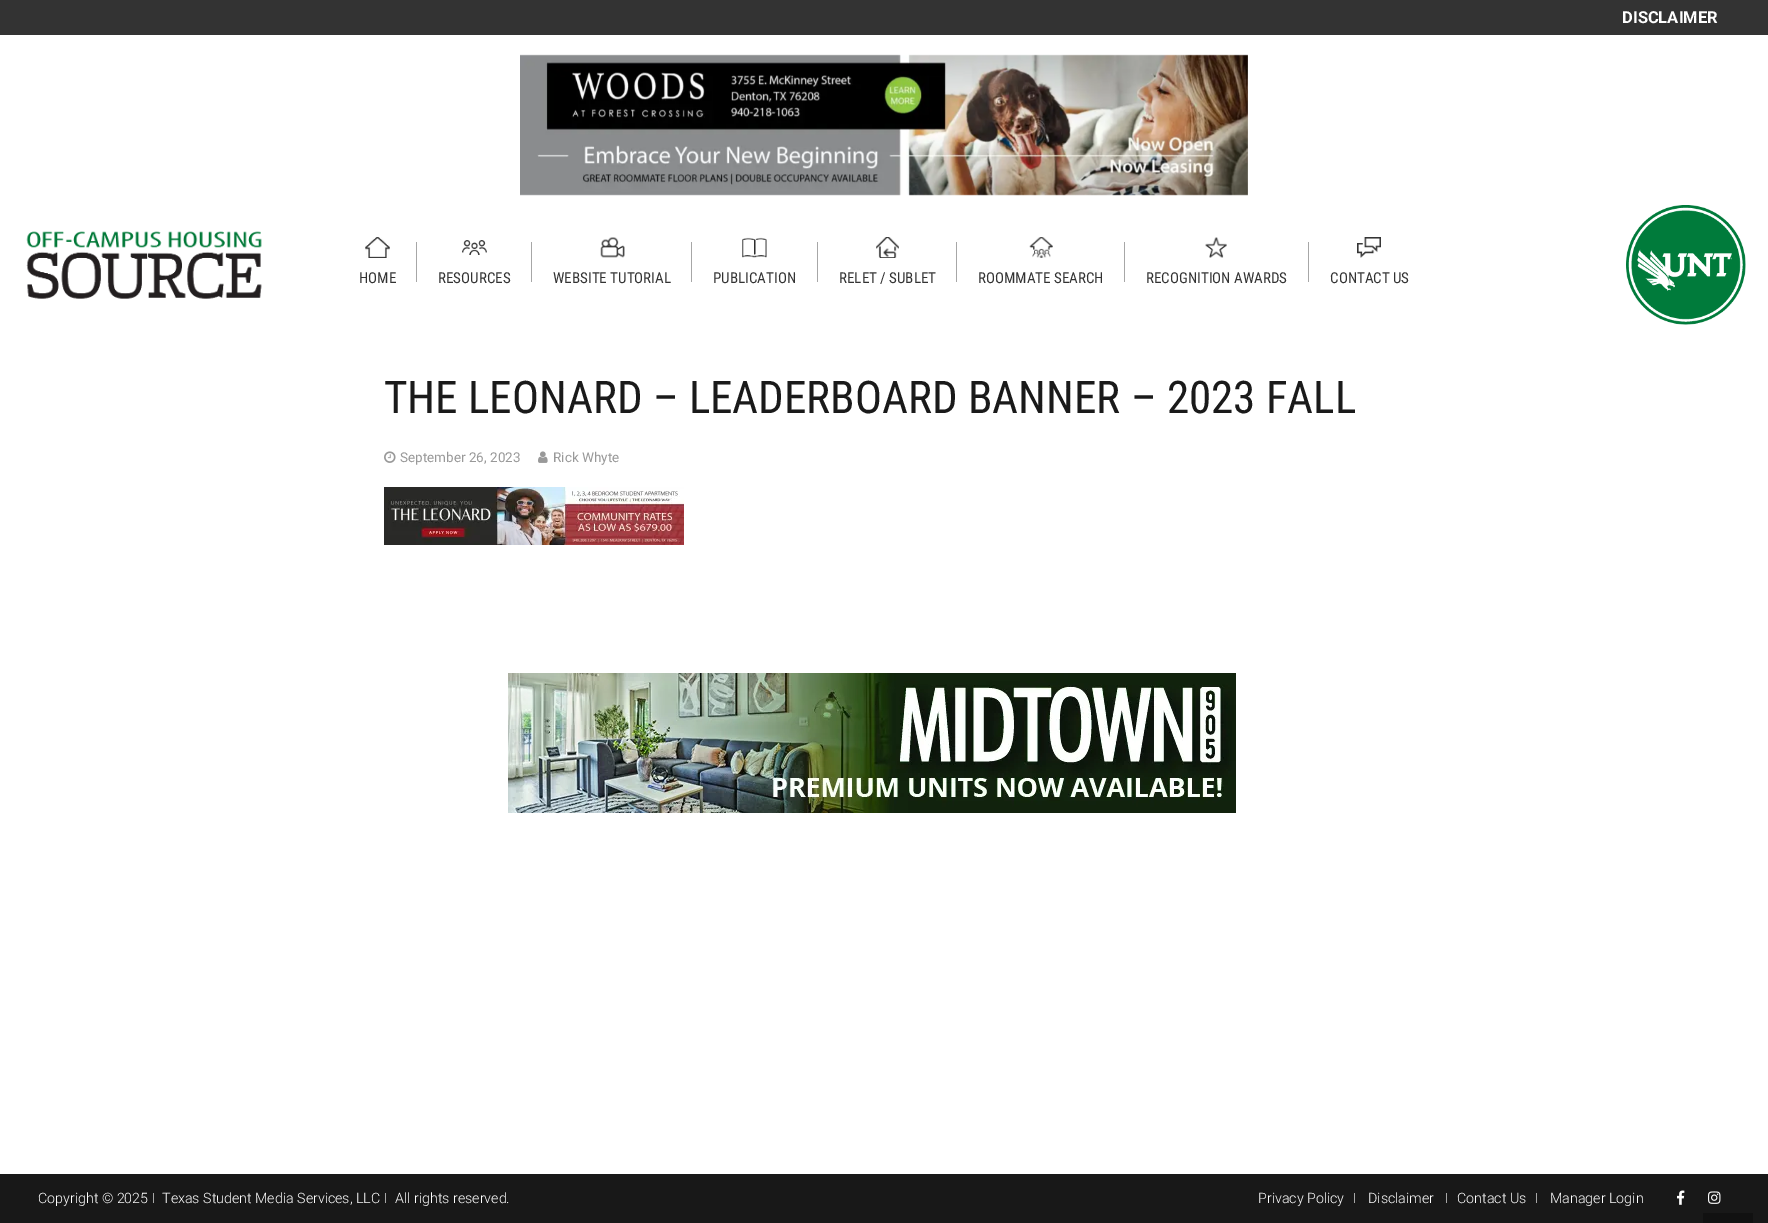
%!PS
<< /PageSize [1768 1223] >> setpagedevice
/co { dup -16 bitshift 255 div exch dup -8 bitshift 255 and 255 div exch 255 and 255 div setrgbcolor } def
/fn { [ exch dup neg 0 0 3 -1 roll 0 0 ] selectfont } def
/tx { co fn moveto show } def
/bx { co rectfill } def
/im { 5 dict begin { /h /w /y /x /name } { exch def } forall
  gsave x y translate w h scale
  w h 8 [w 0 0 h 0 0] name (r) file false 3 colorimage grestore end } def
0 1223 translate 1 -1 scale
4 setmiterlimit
0 0 1768 1223 16#FFFFFF bx
0 0 1768 35 16#333333 bx
(media/1.raw) 520 54 728 142 im
(media/2.raw) 26 231 236 68 im
(media/3.raw) 365 237 25 21 im
416 242 1 40 16#A7A7A7 bx
(media/4.raw) 462 240 25 15 im
531 242 1 40 16#A7A7A7 bx
(media/5.raw) 600 237 25 21 im
691 242 1 40 16#A7A7A7 bx
(media/6.raw) 742 237 25 21 im
817 242 1 40 16#A7A7A7 bx
(media/7.raw) 876 237 23 21 im
956 242 1 40 16#A7A7A7 bx
(media/8.raw) 1029 237 24 21 im
1124 242 1 40 16#A7A7A7 bx
(media/9.raw) 1205 237 22 21 im
1308 242 1 40 16#A7A7A7 bx
(media/10.raw) 1357 237 24 21 im
(media/11.raw) 1626 205 120 120 im
(media/12.raw) 384 451 12 12 im
(media/13.raw) 538 451 10 12 im
(media/14.raw) 384 487 300 58 im
(media/15.raw) 508 673 728 140 im
0 1174 1768 49 16#181818 bx
153 1193 1 10 16#A7A7A7 bx
385 1193 1 10 16#A7A7A7 bx
1354 1193 1 10 16#A7A7A7 bx
1446 1193 1 10 16#A7A7A7 bx
1536 1193 1 10 16#A7A7A7 bx
(media/16.raw) 1677 1190 8 15 im
(media/17.raw) 1708 1191 13 13 im
1703 1213 50 10 16#111111 bx
(DISCLAIMER) 1622 23 /Roboto-Bold 16.5 16#FFFFFF tx
(HOME) 359 283 /RobotoCondensed-Regular 15 16#333333 tx
(RESOURCES) 438 283 /RobotoCondensed-Regular 15 16#333333 tx
(WEBSITE TUTORIAL) 553 283 /RobotoCondensed-Regular 15 16#333333 tx
(PUBLICATION) 713 283 /RobotoCondensed-Regular 15 16#333333 tx
(RELET / SUBLET) 839 283 /RobotoCondensed-Regular 15 16#333333 tx
(ROOMMATE SEARCH) 978 283 /RobotoCondensed-Regular 15 16#333333 tx
(RECOGNITION AWARDS) 1146 283 /RobotoCondensed-Regular 15 16#333333 tx
(CONTACT US) 1330 283 /RobotoCondensed-Regular 15 16#333333 tx
(THE LEONARD – LEADERBOARD BANNER – 2023 FALL) 384 413 /RobotoCondensed-Regular 45 16#1A1A1A tx
(September 26, 2023) 400 462 /Roboto-Regular 13.5 16#999999 tx
(Rick Whyte) 553 462 /Roboto-Regular 13.5 16#999999 tx
(Copyright © 2025) 38 1203 /Roboto-Light 14.25 16#FFFFFF tx
(Texas Student Media Services, LLC) 162 1203 /Roboto-Light 14.25 16#FFFFFF tx
(All rights reserved.) 395 1203 /Roboto-Light 14.25 16#FFFFFF tx
(Privacy Policy) 1258 1203 /Roboto-Light 14.25 16#FFFFFF tx
(Disclaimer) 1368 1203 /Roboto-Light 14.25 16#FFFFFF tx
(Contact Us) 1457 1203 /Roboto-Light 14.25 16#FFFFFF tx
(Manager Login) 1550 1203 /Roboto-Light 14.25 16#FFFFFF tx
showpage
